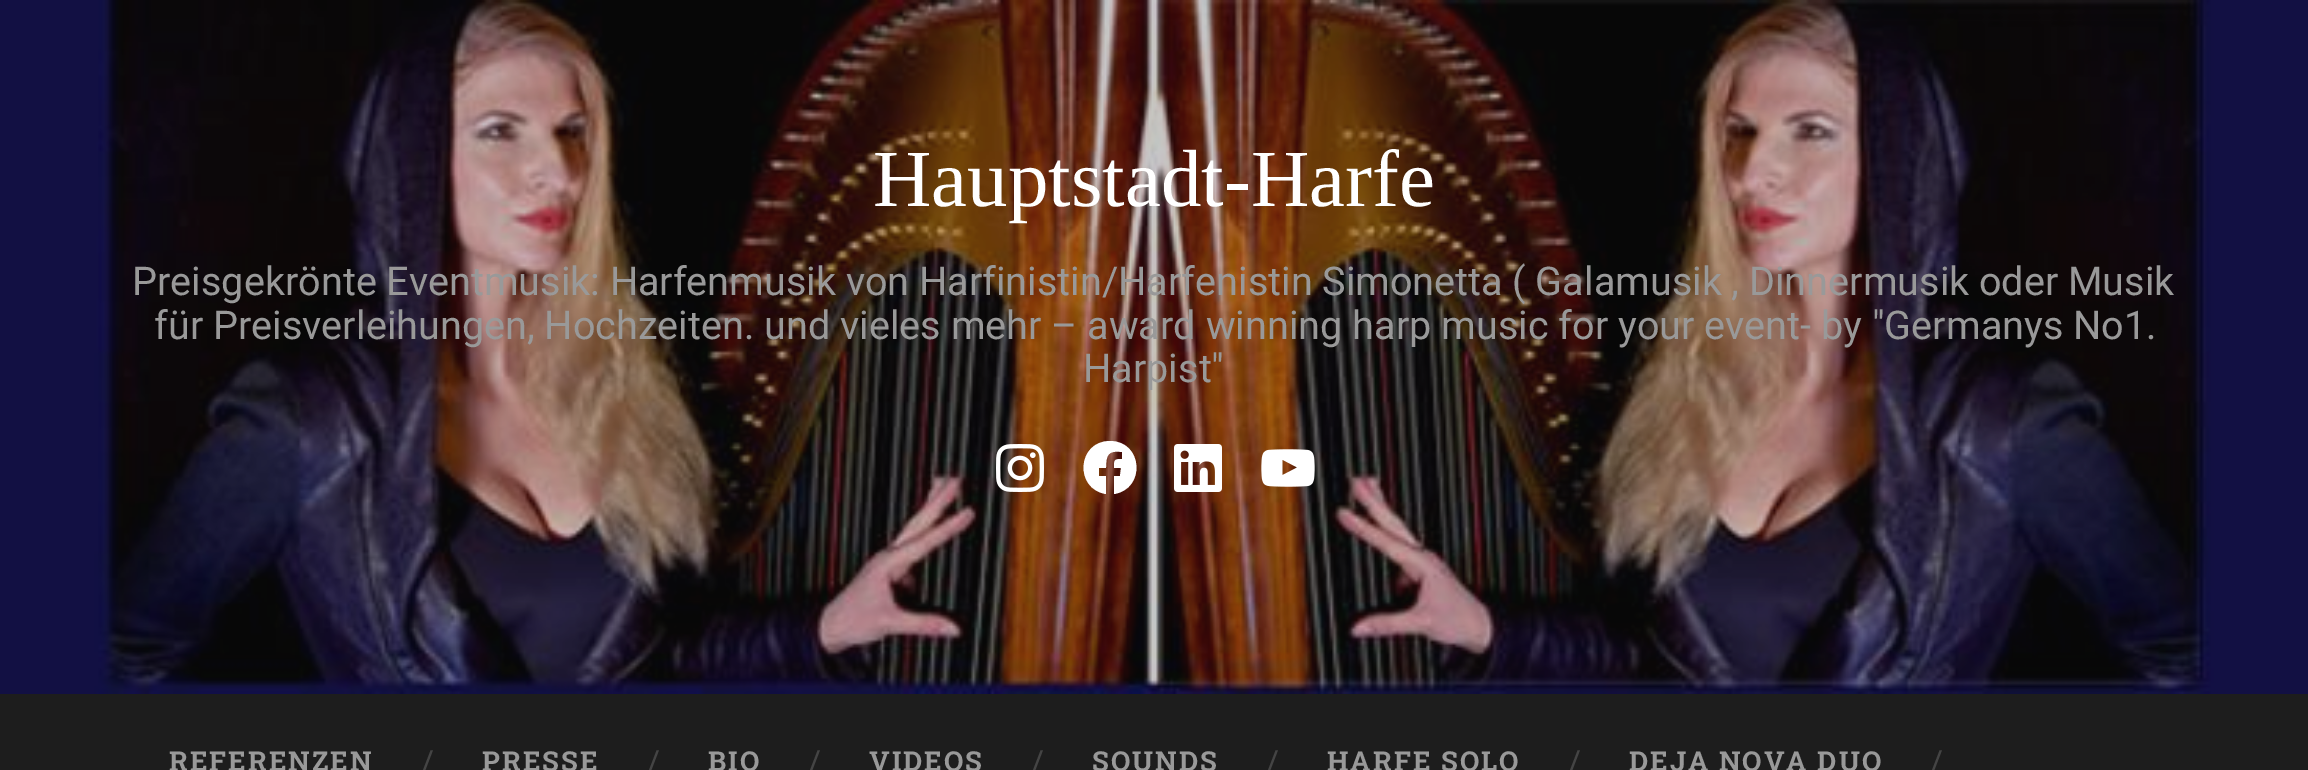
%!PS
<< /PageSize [2308 770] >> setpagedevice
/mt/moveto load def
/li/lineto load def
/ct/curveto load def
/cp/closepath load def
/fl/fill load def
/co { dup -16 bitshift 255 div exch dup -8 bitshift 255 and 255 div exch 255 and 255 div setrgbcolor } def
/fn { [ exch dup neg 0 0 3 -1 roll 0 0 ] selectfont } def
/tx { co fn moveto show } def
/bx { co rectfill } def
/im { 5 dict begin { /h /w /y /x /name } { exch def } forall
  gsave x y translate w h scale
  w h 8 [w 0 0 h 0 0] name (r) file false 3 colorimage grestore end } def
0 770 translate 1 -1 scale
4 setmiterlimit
0 0 2308 770 16#FFFFFF bx
(media/1.raw) 0 0 2308 694 im
(media/2.raw) 996 444 48 48 im
1110 441 mt 1077 441 1074 489 1106 494 ct 1106 476 li 1099 476 li 1099 468 li 1106 468 li 1106 455 1108 450 1122 452 ct 1122 459 li 1114 459 1114 460 1114 468 ct 1121 468 li 1120 476 li 1114 476 li 1114 494 li 1146 489 1143 441 1110 441 ct cp fl
(media/3.raw) 1174 444 48 48 im
(media/4.raw) 1261 449 54 38 im
0 694 2308 76 16#1D1D1D bx
(Hauptstadt-Harfe) 873 206 /LiberationSerif-Regular 81 16#FFFFFF tx
/Roboto-Regular 39.6 fn
16#999999 co
132 295 mt -.25 0 32 (Preisgekrönte Eventmusik: Harfenmusik von Harfinistin/Harfenistin Simonetta \( Galamusik , Dinnermusik oder Musik) widthshow
(für Preisverleihungen, Hochzeiten. und vieles mehr – award winning harp music for your event- by "Germanys No1.) 154 339 /Roboto-Regular 39.6 16#999999 tx
(Harpist") 1083 382 /Roboto-Regular 39.6 16#999999 tx
/RobotoSlab-Bold 27.5 fn
169 771 mt 2 0 (REFERENZEN) ashow
(/) 421 773 /RobotoSlab-Regular 32 16#444444 tx
/RobotoSlab-Bold 27.5 fn
16#999999 co
482 771 mt 2 0 (PRESSE) ashow
(/) 647 773 /RobotoSlab-Regular 32 16#444444 tx
/RobotoSlab-Bold 27.5 fn
16#999999 co
708 771 mt 2 0 (BIO) ashow
(/) 808 773 /RobotoSlab-Regular 32 16#444444 tx
/RobotoSlab-Bold 27.5 fn
16#999999 co
869 771 mt 2 0 (VIDEOS) ashow
(/) 1031 773 /RobotoSlab-Regular 32 16#444444 tx
/RobotoSlab-Bold 27.5 fn
16#999999 co
1092 771 mt 2 0 (SOUNDS) ashow
(/) 1266 773 /RobotoSlab-Regular 32 16#444444 tx
/RobotoSlab-Bold 27.5 fn
16#999999 co
1327 771 mt 2 0 (HARFE SOLO) ashow
(/) 1568 773 /RobotoSlab-Regular 32 16#444444 tx
/RobotoSlab-Bold 27.5 fn
16#999999 co
1629 771 mt 2 0 (DEJA NOVA DUO) ashow
(/) 1930 773 /RobotoSlab-Regular 32 16#444444 tx
showpage
